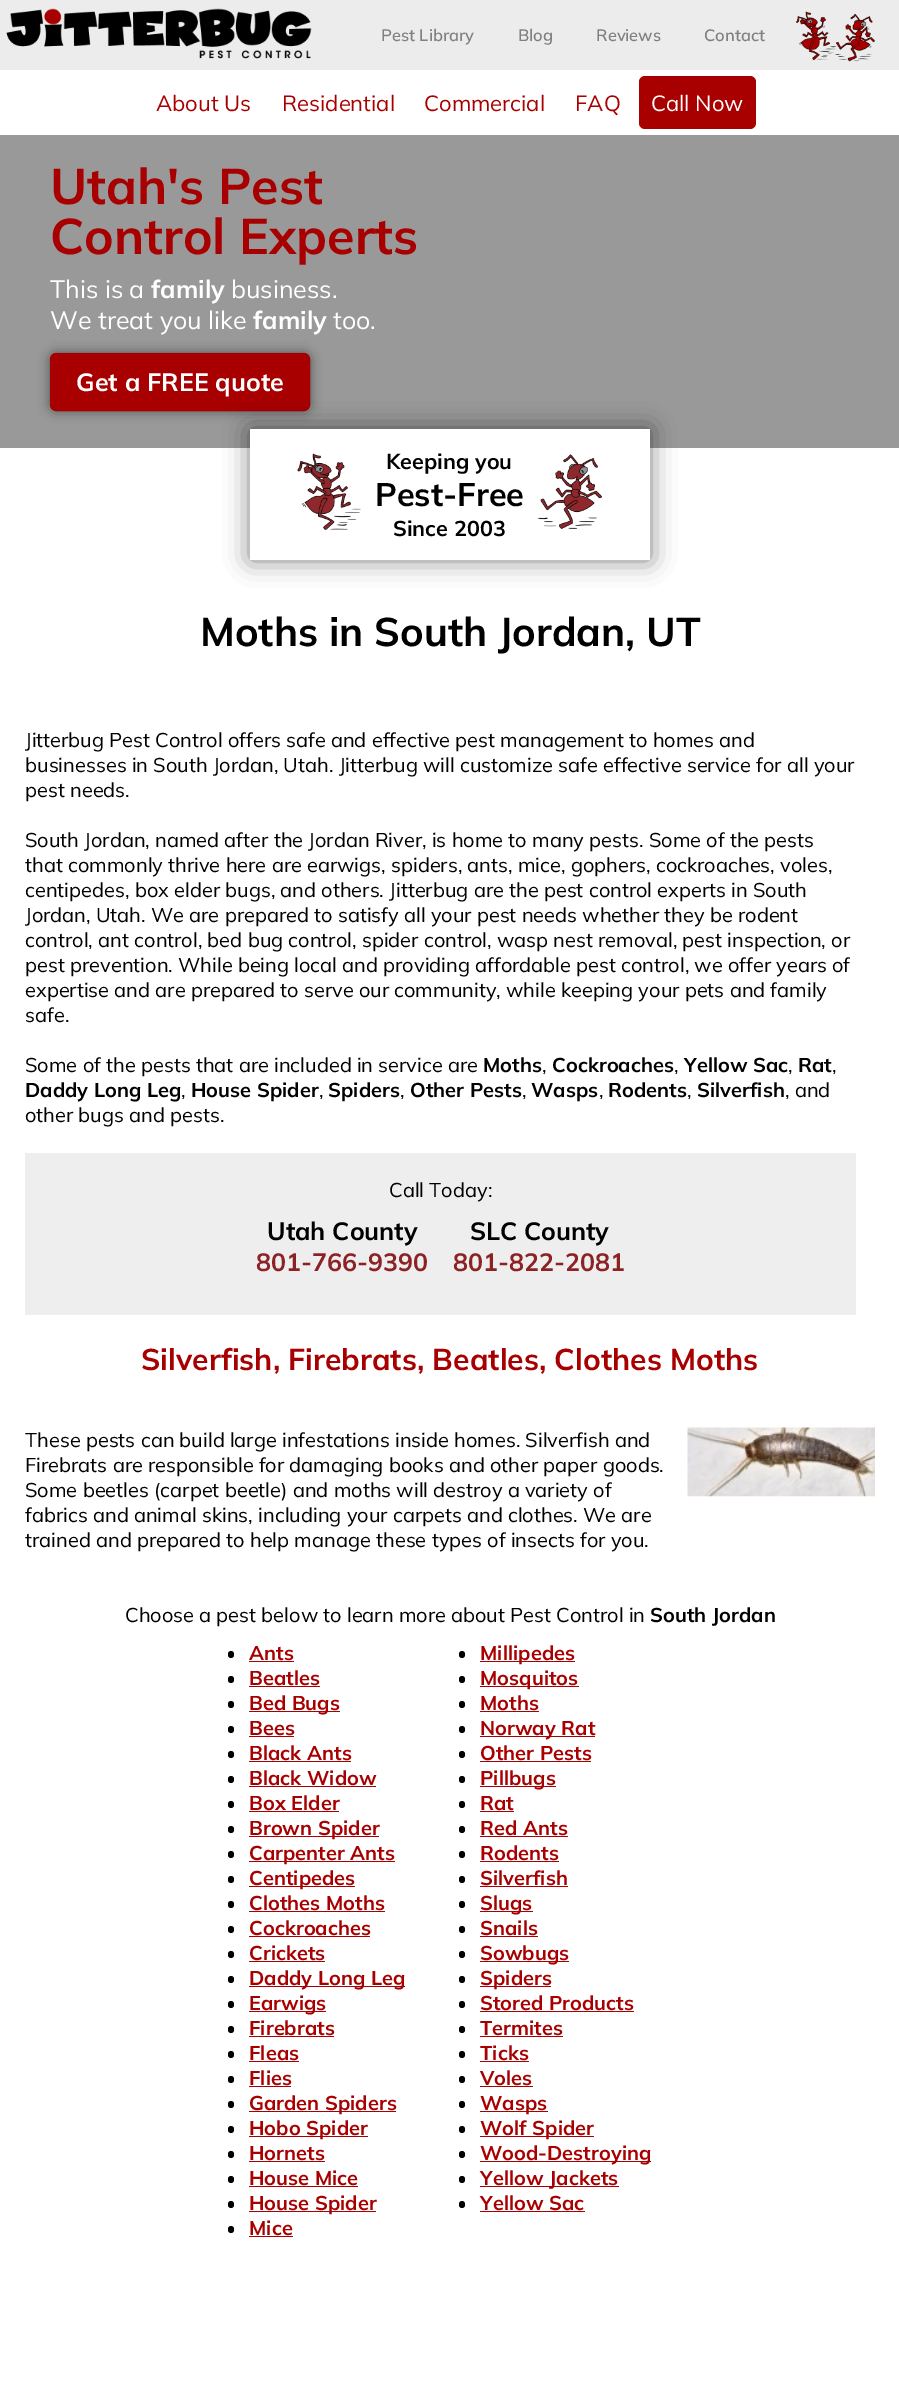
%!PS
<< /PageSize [899 2393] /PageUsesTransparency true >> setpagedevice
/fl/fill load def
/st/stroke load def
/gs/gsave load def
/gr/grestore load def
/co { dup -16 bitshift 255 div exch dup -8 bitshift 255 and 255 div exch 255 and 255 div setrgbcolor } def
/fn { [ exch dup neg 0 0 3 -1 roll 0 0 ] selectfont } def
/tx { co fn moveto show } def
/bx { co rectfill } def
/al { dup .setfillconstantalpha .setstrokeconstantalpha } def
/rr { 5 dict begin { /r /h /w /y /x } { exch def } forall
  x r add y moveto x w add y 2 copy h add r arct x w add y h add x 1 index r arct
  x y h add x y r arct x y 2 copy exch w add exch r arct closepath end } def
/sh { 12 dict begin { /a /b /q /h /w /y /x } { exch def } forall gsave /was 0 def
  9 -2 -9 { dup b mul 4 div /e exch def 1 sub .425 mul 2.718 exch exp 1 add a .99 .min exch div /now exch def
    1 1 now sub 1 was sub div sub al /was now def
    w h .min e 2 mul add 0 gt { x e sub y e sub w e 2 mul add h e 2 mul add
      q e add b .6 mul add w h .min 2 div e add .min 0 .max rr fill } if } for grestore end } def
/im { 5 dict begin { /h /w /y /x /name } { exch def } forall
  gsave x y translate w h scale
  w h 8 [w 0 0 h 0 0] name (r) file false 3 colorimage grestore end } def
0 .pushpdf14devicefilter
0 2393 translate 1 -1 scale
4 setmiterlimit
0 0 899 2393 16#FFFFFF bx
0 0 899 70 16#ECECEC bx
(media/1.raw) 6 8 306 51 im
(media/2.raw) 796 11 79 51 im
16#A80000 co
639 76 117 53 6 rr fl
0 135 899 313 16#999999 bx
16#000000 co
50 353 260 58 6 6 .5 sh
16#A80000 co
50.5 353.5 259 57 5.5 rr gs fl gr
st
16#000000 co
250 429 400 131 0 12.5 .5 sh
250 429 400 131 16#FFFFFF bx
(media/3.raw) 297 453 64 77 im
(media/4.raw) 537 454 65 75 im
25 1153 831 162 16#EEEEEE bx
(media/5.raw) 687 1427 188 70 im
16#000000 co
228 1651 6 7 3 rr fl
249 1661 45 1 16#A80000 bx
16#000000 co
228 1676 6 7 3 rr fl
249 1686 71 1 16#A80000 bx
16#000000 co
228 1701 6 7 3 rr fl
249 1711 91 1 16#A80000 bx
16#000000 co
228 1726 6 7 3 rr fl
249 1736 45 1 16#A80000 bx
16#000000 co
228 1751 6 7 3 rr fl
249 1761 102 1 16#A80000 bx
16#000000 co
228 1776 6 7 3 rr fl
249 1786 127 1 16#A80000 bx
16#000000 co
228 1801 6 7 3 rr fl
249 1811 90 1 16#A80000 bx
16#000000 co
228 1826 6 7 3 rr fl
249 1836 130 1 16#A80000 bx
16#000000 co
228 1851 6 7 3 rr fl
249 1861 146 1 16#A80000 bx
16#000000 co
228 1876 6 7 3 rr fl
249 1886 106 1 16#A80000 bx
16#000000 co
228 1901 6 7 3 rr fl
249 1911 136 1 16#A80000 bx
16#000000 co
228 1926 6 7 3 rr fl
249 1936 121 1 16#A80000 bx
16#000000 co
228 1951 6 7 3 rr fl
249 1961 76 1 16#A80000 bx
16#000000 co
228 1976 6 7 3 rr fl
249 1986 156 1 16#A80000 bx
16#000000 co
228 2001 6 7 3 rr fl
249 2011 77 1 16#A80000 bx
16#000000 co
228 2026 6 7 3 rr fl
249 2036 85 1 16#A80000 bx
16#000000 co
228 2051 6 7 3 rr fl
249 2061 50 1 16#A80000 bx
16#000000 co
228 2076 6 7 3 rr fl
249 2086 42 1 16#A80000 bx
16#000000 co
228 2101 6 7 3 rr fl
249 2111 147 1 16#A80000 bx
16#000000 co
228 2126 6 7 3 rr fl
249 2136 119 1 16#A80000 bx
16#000000 co
228 2151 6 7 3 rr fl
249 2161 76 1 16#A80000 bx
16#000000 co
228 2176 6 7 3 rr fl
249 2186 109 1 16#A80000 bx
16#000000 co
228 2201 6 7 3 rr fl
249 2211 127 1 16#A80000 bx
16#000000 co
228 2226 6 7 3 rr fl
249 2236 44 1 16#A80000 bx
16#000000 co
459 1651 6 7 3 rr fl
480 1661 95 1 16#A80000 bx
16#000000 co
459 1676 6 7 3 rr fl
480 1686 99 1 16#A80000 bx
16#000000 co
459 1701 6 7 3 rr fl
480 1711 59 1 16#A80000 bx
16#000000 co
459 1726 6 7 3 rr fl
480 1736 115 1 16#A80000 bx
16#000000 co
459 1751 6 7 3 rr fl
480 1761 111 1 16#A80000 bx
16#000000 co
459 1776 6 7 3 rr fl
480 1786 76 1 16#A80000 bx
16#000000 co
459 1801 6 7 3 rr fl
480 1811 34 1 16#A80000 bx
16#000000 co
459 1826 6 7 3 rr fl
480 1836 88 1 16#A80000 bx
16#000000 co
459 1851 6 7 3 rr fl
480 1861 79 1 16#A80000 bx
16#000000 co
459 1876 6 7 3 rr fl
480 1886 88 1 16#A80000 bx
16#000000 co
459 1901 6 7 3 rr fl
480 1911 53 1 16#A80000 bx
16#000000 co
459 1926 6 7 3 rr fl
480 1936 58 1 16#A80000 bx
16#000000 co
459 1951 6 7 3 rr fl
480 1961 89 1 16#A80000 bx
16#000000 co
459 1976 6 7 3 rr fl
480 1986 71 1 16#A80000 bx
16#000000 co
459 2001 6 7 3 rr fl
480 2011 154 1 16#A80000 bx
16#000000 co
459 2026 6 7 3 rr fl
480 2036 83 1 16#A80000 bx
16#000000 co
459 2051 6 7 3 rr fl
480 2061 49 1 16#A80000 bx
16#000000 co
459 2076 6 7 3 rr fl
480 2086 53 1 16#A80000 bx
16#000000 co
459 2101 6 7 3 rr fl
480 2111 68 1 16#A80000 bx
16#000000 co
459 2126 6 7 3 rr fl
480 2136 114 1 16#A80000 bx
16#000000 co
459 2151 6 7 3 rr fl
480 2161 171 1 16#A80000 bx
16#000000 co
459 2176 6 7 3 rr fl
480 2186 139 1 16#A80000 bx
16#000000 co
459 2201 6 7 3 rr fl
480 2211 105 1 16#A80000 bx
(Pest Library) 381 41 /Mulish-SemiBold 16.5 16#808080 tx
(Blog) 518 41 /Mulish-SemiBold 16.5 16#808080 tx
(Reviews) 596 41 /Mulish-SemiBold 16.5 16#808080 tx
(Contact) 704 41 /Mulish-SemiBold 16.5 16#808080 tx
(About Us) 156 111 /Mulish-Regular 22 16#A80000 tx
(Residential) 282 111 /Mulish-Regular 22 16#A80000 tx
(Commercial) 424 111 /Mulish-Regular 22 16#A80000 tx
(FAQ) 575 111 /Mulish-Regular 22 16#A80000 tx
(Call Now) 651 111 /Mulish-Regular 22 16#FFFFFF tx
(Utah's Pest) 50 204 /Mulish-Bold 50 16#A80000 tx
(Control Experts) 50 254 /Mulish-Bold 50 16#A80000 tx
(This is a) 50 298 /Mulish-Regular 25 16#FFFFFF tx
(family) 151 298 /Mulish-Bold 25 16#FFFFFF tx
(business.) 231 298 /Mulish-Regular 25 16#FFFFFF tx
(We treat you like) 50 329 /Mulish-Regular 25 16#FFFFFF tx
(family) 253 329 /Mulish-Bold 25 16#FFFFFF tx
(too.) 333 329 /Mulish-Regular 25 16#FFFFFF tx
(Get a FREE quote) 76 391 /Mulish-Bold 25 16#FFFFFF tx
(Keeping you) 386 469 /Mulish-Bold 21.5 16#000000 tx
(Pest-Free) 375 506 /Mulish-Bold 32.5 16#000000 tx
(Since 2003) 393 536 /Mulish-Bold 21.5 16#000000 tx
(Moths in South Jordan, UT) 200 646 /Mulish-Bold 40 16#000000 tx
(Jitterbug Pest Control offers safe and effective pest management to homes and) 25 747 /Mulish-Regular 20 16#000000 tx
(businesses in South Jordan, Utah. Jitterbug will customize safe effective service for all your) 25 772 /Mulish-Regular 20 16#000000 tx
(pest needs.) 25 797 /Mulish-Regular 20 16#000000 tx
(South Jordan, named after the Jordan River, is home to many pests. Some of the pests) 25 847 /Mulish-Regular 20 16#000000 tx
(that commonly thrive here are earwigs, spiders, ants, mice, gophers, cockroaches, voles,) 25 872 /Mulish-Regular 20 16#000000 tx
(centipedes, box elder bugs, and others. Jitterbug are the pest control experts in South) 25 897 /Mulish-Regular 20 16#000000 tx
(Jordan, Utah. We are prepared to satisfy all your pest needs whether they be rodent) 25 922 /Mulish-Regular 20 16#000000 tx
(control, ant control, bed bug control, spider control, wasp nest removal, pest inspection, or) 25 947 /Mulish-Regular 20 16#000000 tx
(pest prevention. While being local and providing affordable pest control, we offer years of) 25 972 /Mulish-Regular 20 16#000000 tx
(expertise and are prepared to serve our community, while keeping your pets and family) 25 997 /Mulish-Regular 20 16#000000 tx
(safe.) 25 1022 /Mulish-Regular 20 16#000000 tx
(Some of the pests that are included in service are) 25 1072 /Mulish-Regular 20 16#000000 tx
(Moths) 483 1072 /Mulish-Bold 20 16#000000 tx
(,) 542 1072 /Mulish-Regular 20 16#000000 tx
(Cockroaches) 552 1072 /Mulish-Bold 20 16#000000 tx
(,) 674 1072 /Mulish-Regular 20 16#000000 tx
(Yellow Sac) 684 1072 /Mulish-Bold 20 16#000000 tx
(,) 788 1072 /Mulish-Regular 20 16#000000 tx
(Rat) 798 1072 /Mulish-Bold 20 16#000000 tx
(,) 832 1072 /Mulish-Regular 20 16#000000 tx
(Daddy Long Leg) 25 1097 /Mulish-Bold 20 16#000000 tx
(,) 181 1097 /Mulish-Regular 20 16#000000 tx
(House Spider) 191 1097 /Mulish-Bold 20 16#000000 tx
(,) 319 1097 /Mulish-Regular 20 16#000000 tx
(Spiders) 328 1097 /Mulish-Bold 20 16#000000 tx
(,) 400 1097 /Mulish-Regular 20 16#000000 tx
(Other Pests) 410 1097 /Mulish-Bold 20 16#000000 tx
(,) 522 1097 /Mulish-Regular 20 16#000000 tx
(Wasps) 531 1097 /Mulish-Bold 20 16#000000 tx
(,) 599 1097 /Mulish-Regular 20 16#000000 tx
(Rodents) 608 1097 /Mulish-Bold 20 16#000000 tx
(,) 687 1097 /Mulish-Regular 20 16#000000 tx
(Silverfish) 697 1097 /Mulish-Bold 20 16#000000 tx
(, and) 785 1097 /Mulish-Regular 20 16#000000 tx
(other bugs and pests.) 25 1122 /Mulish-Regular 20 16#000000 tx
(Call Today:) 389 1197 /Mulish-Regular 20 16#000000 tx
(Utah County) 267 1240 /Mulish-Bold 25 16#000000 tx
(801-766-9390) 256 1271 /Mulish-Bold 25 16#8D2225 tx
(SLC County) 470 1240 /Mulish-Bold 25 16#000000 tx
(801-822-2081) 453 1271 /Mulish-Bold 25 16#8D2225 tx
(Silverfish, Firebrats, Beatles, Clothes Moths) 141 1370 /Mulish-Bold 30 16#A80000 tx
(These pests can build large infestations inside homes. Silverfish and) 25 1447 /Mulish-Regular 20 16#000000 tx
(Firebrats are responsible for damaging books and other paper goods.) 25 1472 /Mulish-Regular 20 16#000000 tx
(Some beetles \(carpet beetle\) and moths will destroy a variety of) 25 1497 /Mulish-Regular 20 16#000000 tx
(fabrics and animal skins, including your carpets and clothes. We are) 25 1522 /Mulish-Regular 20 16#000000 tx
(trained and prepared to help manage these types of insects for you.) 25 1547 /Mulish-Regular 20 16#000000 tx
(Choose a pest below to learn more about Pest Control in) 125 1622 /Mulish-Regular 20 16#000000 tx
(South Jordan) 650 1622 /Mulish-Bold 20 16#000000 tx
(Ants) 249 1660 /Mulish-Bold 20 16#A80000 tx
(Beatles) 249 1685 /Mulish-Bold 20 16#A80000 tx
(Bed Bugs) 249 1710 /Mulish-Bold 20 16#A80000 tx
(Bees) 249 1735 /Mulish-Bold 20 16#A80000 tx
(Black Ants) 249 1760 /Mulish-Bold 20 16#A80000 tx
(Black Widow) 249 1785 /Mulish-Bold 20 16#A80000 tx
(Box Elder) 249 1810 /Mulish-Bold 20 16#A80000 tx
(Brown Spider) 249 1835 /Mulish-Bold 20 16#A80000 tx
(Carpenter Ants) 249 1860 /Mulish-Bold 20 16#A80000 tx
(Centipedes) 249 1885 /Mulish-Bold 20 16#A80000 tx
(Clothes Moths) 249 1910 /Mulish-Bold 20 16#A80000 tx
(Cockroaches) 249 1935 /Mulish-Bold 20 16#A80000 tx
(Crickets) 249 1960 /Mulish-Bold 20 16#A80000 tx
(Daddy Long Leg) 249 1985 /Mulish-Bold 20 16#A80000 tx
(Earwigs) 249 2010 /Mulish-Bold 20 16#A80000 tx
(Firebrats) 249 2035 /Mulish-Bold 20 16#A80000 tx
(Fleas) 249 2060 /Mulish-Bold 20 16#A80000 tx
(Flies) 249 2085 /Mulish-Bold 20 16#A80000 tx
(Garden Spiders) 249 2110 /Mulish-Bold 20 16#A80000 tx
(Hobo Spider) 249 2135 /Mulish-Bold 20 16#A80000 tx
(Hornets) 249 2160 /Mulish-Bold 20 16#A80000 tx
(House Mice) 249 2185 /Mulish-Bold 20 16#A80000 tx
(House Spider) 249 2210 /Mulish-Bold 20 16#A80000 tx
(Mice) 249 2235 /Mulish-Bold 20 16#A80000 tx
(Millipedes) 480 1660 /Mulish-Bold 20 16#A80000 tx
(Mosquitos) 480 1685 /Mulish-Bold 20 16#A80000 tx
(Moths) 480 1710 /Mulish-Bold 20 16#A80000 tx
(Norway Rat) 480 1735 /Mulish-Bold 20 16#A80000 tx
(Other Pests) 480 1760 /Mulish-Bold 20 16#A80000 tx
(Pillbugs) 480 1785 /Mulish-Bold 20 16#A80000 tx
(Rat) 480 1810 /Mulish-Bold 20 16#A80000 tx
(Red Ants) 480 1835 /Mulish-Bold 20 16#A80000 tx
(Rodents) 480 1860 /Mulish-Bold 20 16#A80000 tx
(Silverfish) 480 1885 /Mulish-Bold 20 16#A80000 tx
(Slugs) 480 1910 /Mulish-Bold 20 16#A80000 tx
(Snails) 480 1935 /Mulish-Bold 20 16#A80000 tx
(Sowbugs) 480 1960 /Mulish-Bold 20 16#A80000 tx
(Spiders) 480 1985 /Mulish-Bold 20 16#A80000 tx
(Stored Products) 480 2010 /Mulish-Bold 20 16#A80000 tx
(Termites) 480 2035 /Mulish-Bold 20 16#A80000 tx
(Ticks) 480 2060 /Mulish-Bold 20 16#A80000 tx
(Voles) 480 2085 /Mulish-Bold 20 16#A80000 tx
(Wasps) 480 2110 /Mulish-Bold 20 16#A80000 tx
(Wolf Spider) 480 2135 /Mulish-Bold 20 16#A80000 tx
(Wood-Destroying) 480 2160 /Mulish-Bold 20 16#A80000 tx
(Yellow Jackets) 480 2185 /Mulish-Bold 20 16#A80000 tx
(Yellow Sac) 480 2210 /Mulish-Bold 20 16#A80000 tx
.poppdf14devicefilter showpage
